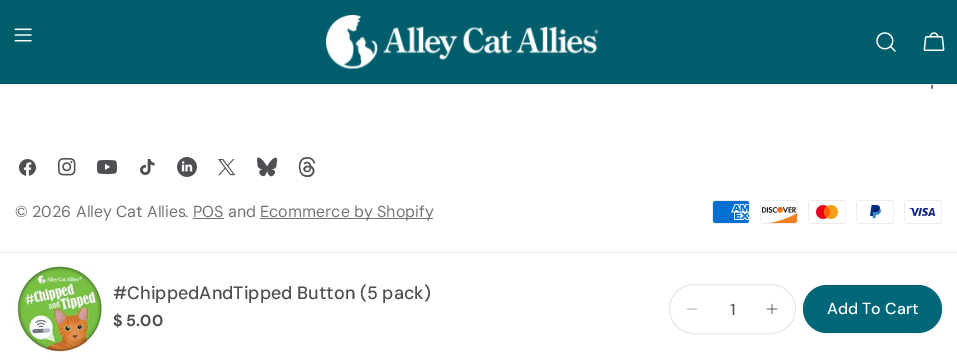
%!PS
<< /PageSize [957 364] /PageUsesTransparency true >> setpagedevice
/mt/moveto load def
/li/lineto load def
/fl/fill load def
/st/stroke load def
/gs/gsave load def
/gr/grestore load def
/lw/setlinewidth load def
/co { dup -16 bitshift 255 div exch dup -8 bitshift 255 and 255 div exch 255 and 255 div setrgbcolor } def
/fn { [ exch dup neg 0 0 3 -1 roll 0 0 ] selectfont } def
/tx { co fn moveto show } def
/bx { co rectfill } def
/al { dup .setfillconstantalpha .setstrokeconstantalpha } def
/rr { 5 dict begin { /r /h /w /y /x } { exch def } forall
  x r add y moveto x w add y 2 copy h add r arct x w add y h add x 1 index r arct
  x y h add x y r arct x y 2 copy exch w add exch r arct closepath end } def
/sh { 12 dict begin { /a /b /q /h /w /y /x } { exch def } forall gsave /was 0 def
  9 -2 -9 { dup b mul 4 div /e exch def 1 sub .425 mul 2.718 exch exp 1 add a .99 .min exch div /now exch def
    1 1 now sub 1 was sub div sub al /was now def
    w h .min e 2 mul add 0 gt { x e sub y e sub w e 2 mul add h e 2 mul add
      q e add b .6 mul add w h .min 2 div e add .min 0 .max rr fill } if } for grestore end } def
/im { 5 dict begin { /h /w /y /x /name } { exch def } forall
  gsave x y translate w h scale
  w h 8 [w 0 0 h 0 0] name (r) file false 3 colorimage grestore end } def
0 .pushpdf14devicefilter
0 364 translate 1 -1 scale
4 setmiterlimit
0 0 957 364 16#FFFFFF bx
16#4D4F53 co
1.5 lw
1 setlinecap
1 setlinejoin
932 74 mt 932 88 li st
16#FFFFFF co
0 4 957 85 0 9 .1 sh
0 0 957 84 16#005D6C bx
0 84 957 1 16#F7F7F7 bx
(media/1.raw) 14 28 18 14 im
(media/2.raw) 326 15 272 54 im
(media/3.raw) 876 32 20 20 im
(media/4.raw) 923 32 22 19 im
(media/5.raw) 19 159 17 17 im
(media/6.raw) 58 158 18 18 im
(media/7.raw) 97 160 20 14 im
(media/8.raw) 140 159 15 16 im
(media/9.raw) 177 157 20 20 im
(media/10.raw) 218 159 18 17 im
(media/11.raw) 257 157 20 20 im
(media/12.raw) 298 157 18 20 im
193 218 31 1 16#717275 bx
260 218 173 1 16#717275 bx
(media/13.raw) 712 200 38 24 im
(media/14.raw) 760 200 38 24 im
(media/15.raw) 808 200 38 24 im
(media/16.raw) 856 200 38 24 im
(media/17.raw) 904 200 38 24 im
gs
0 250 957 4 rectclip
16#000000 co
0 254 957 110 0 5 .09 sh
gr
(media/18.raw) 15 265 88 89 im
16#E6E6E6 co
1 lw
0 setlinecap
0 setlinejoin
669.5 284.5 126 49 24.5 rr st
(media/19.raw) 686 308 12 2 im
(media/20.raw) 766 303 12 12 im
16#006778 co
803 285 139 48 24 rr fl
(© 2026) 15 217 /DMSans-Regular 16 16#717275 tx
(Alley Cat Allies) 76 217 /DMSans-Regular 16 16#717275 tx
(. POS) 185 217 /DMSans-Regular 16 16#717275 tx
(and) 228 217 /DMSans-Regular 16 16#717275 tx
(Ecommerce by Shopify) 260 217 /DMSans-Regular 16 16#717275 tx
(#ChippedAndTipped Button \(5 pack\)) 113 299 /DMSans-Medium 17.9 16#4D4F53 tx
($ 5.00) 113 326 /DMSans-Bold 16 16#4D4F53 tx
(1) 730 315 /DMSans-Regular 16 16#4D4F53 tx
(Add To Cart) 827 314 /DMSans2-Medium 16 16#FFFFFF tx
.poppdf14devicefilter showpage
